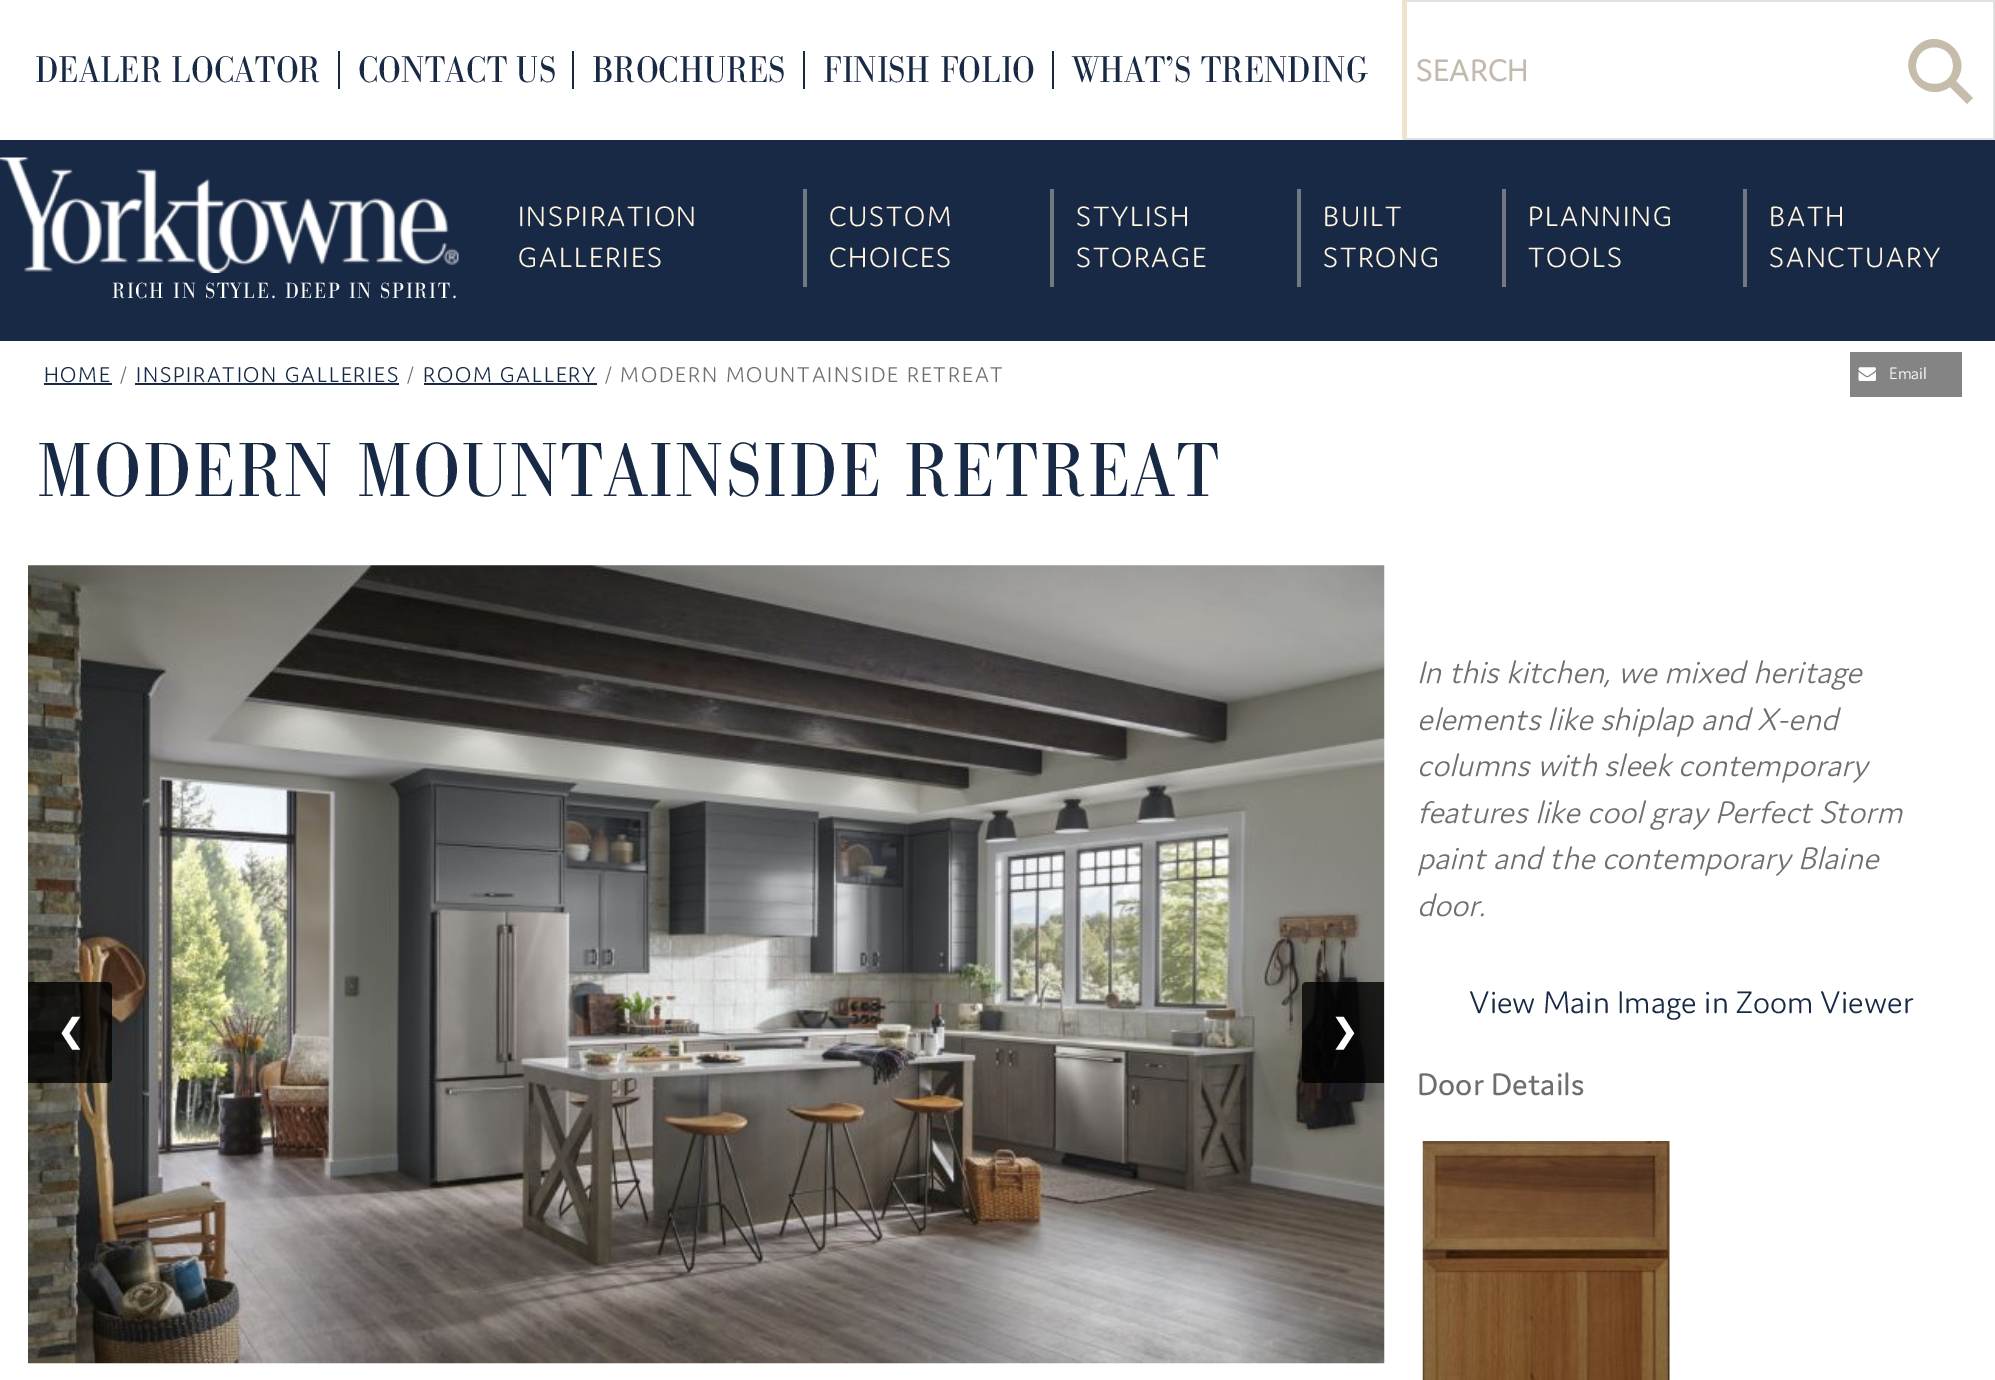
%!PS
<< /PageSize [1995 1380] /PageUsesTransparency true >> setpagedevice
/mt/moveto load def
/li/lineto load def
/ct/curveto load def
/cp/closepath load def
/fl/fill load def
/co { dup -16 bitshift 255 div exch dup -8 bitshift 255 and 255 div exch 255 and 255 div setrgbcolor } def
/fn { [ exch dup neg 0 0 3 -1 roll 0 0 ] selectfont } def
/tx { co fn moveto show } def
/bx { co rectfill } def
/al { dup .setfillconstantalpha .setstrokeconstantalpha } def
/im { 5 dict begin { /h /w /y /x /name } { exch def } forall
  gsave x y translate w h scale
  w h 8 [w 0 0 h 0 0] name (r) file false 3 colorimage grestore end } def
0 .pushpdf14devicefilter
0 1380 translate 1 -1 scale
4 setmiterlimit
0 0 1995 1380 16#FFFFFF bx
338 51 2 38 16#182945 bx
572 51 2 38 16#182945 bx
803 51 2 38 16#182945 bx
1052 51 2 38 16#182945 bx
16#E1E1E3 co
1402 0 mt 1995 0 li 1993 2 li 1407 2 li cp fl
1993 0 2 140 16#E1E1E3 bx
1995 140 mt 1402 140 li 1407 138 li 1993 138 li cp fl
16#EFE3CC co
1402 140 mt 1402 0 li 1407 2 li 1407 138 li cp fl
16#C5BCAC co
1973 98 mt 1956 81 li 1975 56 1939 24 1916 47 ct 1894 70 1924 105 1950 87 ct 1967 104 li cp 1916 66 mt 1916 41 1953 41 1953 66 ct 1953 90 1916 90 1916 66 ct cp fl
0 140 1995 201 16#182945 bx
803 189 4 98 16#727882 bx
1050 189 4 98 16#727882 bx
1297 189 4 98 16#727882 bx
1502 189 4 98 16#727882 bx
1743 189 4 98 16#727882 bx
(media/1.raw) 0 157 459 116 im
44 383 68 2 16#182945 bx
135 383 264 2 16#182945 bx
424 383 173 2 16#182945 bx
1850 352 112 45 16#848484 bx
(media/2.raw) 1858 367 18 14 im
(media/3.raw) 28 565 1357 799 im
0.8 al
16#000000 co
28 982 mt 107 982 li 110 982 112 984 112 987 ct 112 1078 li 112 1081 110 1083 107 1083 ct 28 1083 li cp fl
1307 982 mt 1384 982 li 1384 1083 li 1307 1083 li 1304 1083 1302 1081 1302 1078 ct 1302 987 li 1302 984 1304 982 1307 982 ct cp fl
1 al
(media/4.raw) 1422 1141 248 239 im
(DEALER LOCATOR) 35 82 /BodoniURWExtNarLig-Regular 38.5 16#182945 tx
(CONTACT US) 358 82 /BodoniURWExtNarLig-Regular 38.5 16#182945 tx
(BROCHURES) 592 82 /BodoniURWExtNarLig-Regular 38.5 16#182945 tx
(FINISH FOLIO) 823 82 /BodoniURWExtNarLig-Regular 38.5 16#182945 tx
(WHAT’S TRENDING) 1072 82 /BodoniURWExtNarLig-Regular 38.5 16#182945 tx
(SEARCH) 1416 81 /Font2-Regular 33.25 16#C3BAAD tx
/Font-Regular 29.75 fn
16#FFF5E1 co
518 226 mt 1.75 0 (INSPIRATION) ashow
518 267 mt 1.75 0 (GALLERIES) ashow
829 226 mt 1.75 0 (CUSTOM) ashow
829 267 mt 1.75 0 (CHOICES) ashow
1076 226 mt 1.75 0 (STYLISH) ashow
1076 267 mt 1.75 0 (STORAGE) ashow
1323 226 mt 1.75 0 (BUILT) ashow
1323 267 mt 1.75 0 (STRONG) ashow
1528 226 mt 1.75 0 (PLANNING) ashow
1528 267 mt 1.75 0 (TOOLS) ashow
1769 226 mt 1.75 0 (BATH) ashow
1769 267 mt 1.75 0 (SANCTUARY) ashow
/BodoniURWExtNarLig-Regular 22.75 fn
16#FFFFFF co
112 298 mt 1.75 0 (RICH IN STYLE. DEEP IN SPIRIT.) ashow
/Font-Regular 22.75 fn
16#182945 co
44 382 mt 1.75 0 (HOME) ashow
16#6D6E70 co
119 382 mt 1.75 0 (/) ashow
16#182945 co
136 382 mt 1.75 0 (INSPIRATION GALLERIES) ashow
16#6D6E70 co
406 382 mt 1.75 0 (/) ashow
16#182945 co
423 382 mt 1.75 0 (ROOM GALLERY) ashow
16#6D6E70 co
604 382 mt 1.75 0 (/ MODERN MOUNTAINSIDE RETREAT) ashow
(Email) 1889 379 /Font-Regular 17.5 16#FFFFFF tx
/BodoniURWExtNarLig-Regular 79.75 fn
16#182945 co
37 496 mt 1.75 0 (MODERN MOUNTAINSIDE RETREAT) ashow
(❮) 57 1042 /DejaVuSans-Bold 32 16#FFFFFF tx
(❯) 1331 1042 /DejaVuSans-Bold 32 16#FFFFFF tx
(In this kitchen, we mixed heritage) 1417 683 /Font-Italic 33.25 16#6D6E70 tx
(elements like shiplap and X-end) 1417 730 /Font-Italic 33.25 16#6D6E70 tx
(columns with sleek contemporary) 1417 776 /Font-Italic 33.25 16#6D6E70 tx
(features like cool gray Perfect Storm) 1417 823 /Font-Italic 33.25 16#6D6E70 tx
(paint and the contemporary Blaine) 1417 869 /Font-Italic 33.25 16#6D6E70 tx
(door.) 1417 916 /Font-Italic 33.25 16#6D6E70 tx
(View Main Image in Zoom Viewer) 1469 1013 /Font-Regular 33.25 16#182945 tx
(Door Details) 1417 1095 /Font2-Regular 33.25 16#6D6E70 tx
.poppdf14devicefilter showpage
